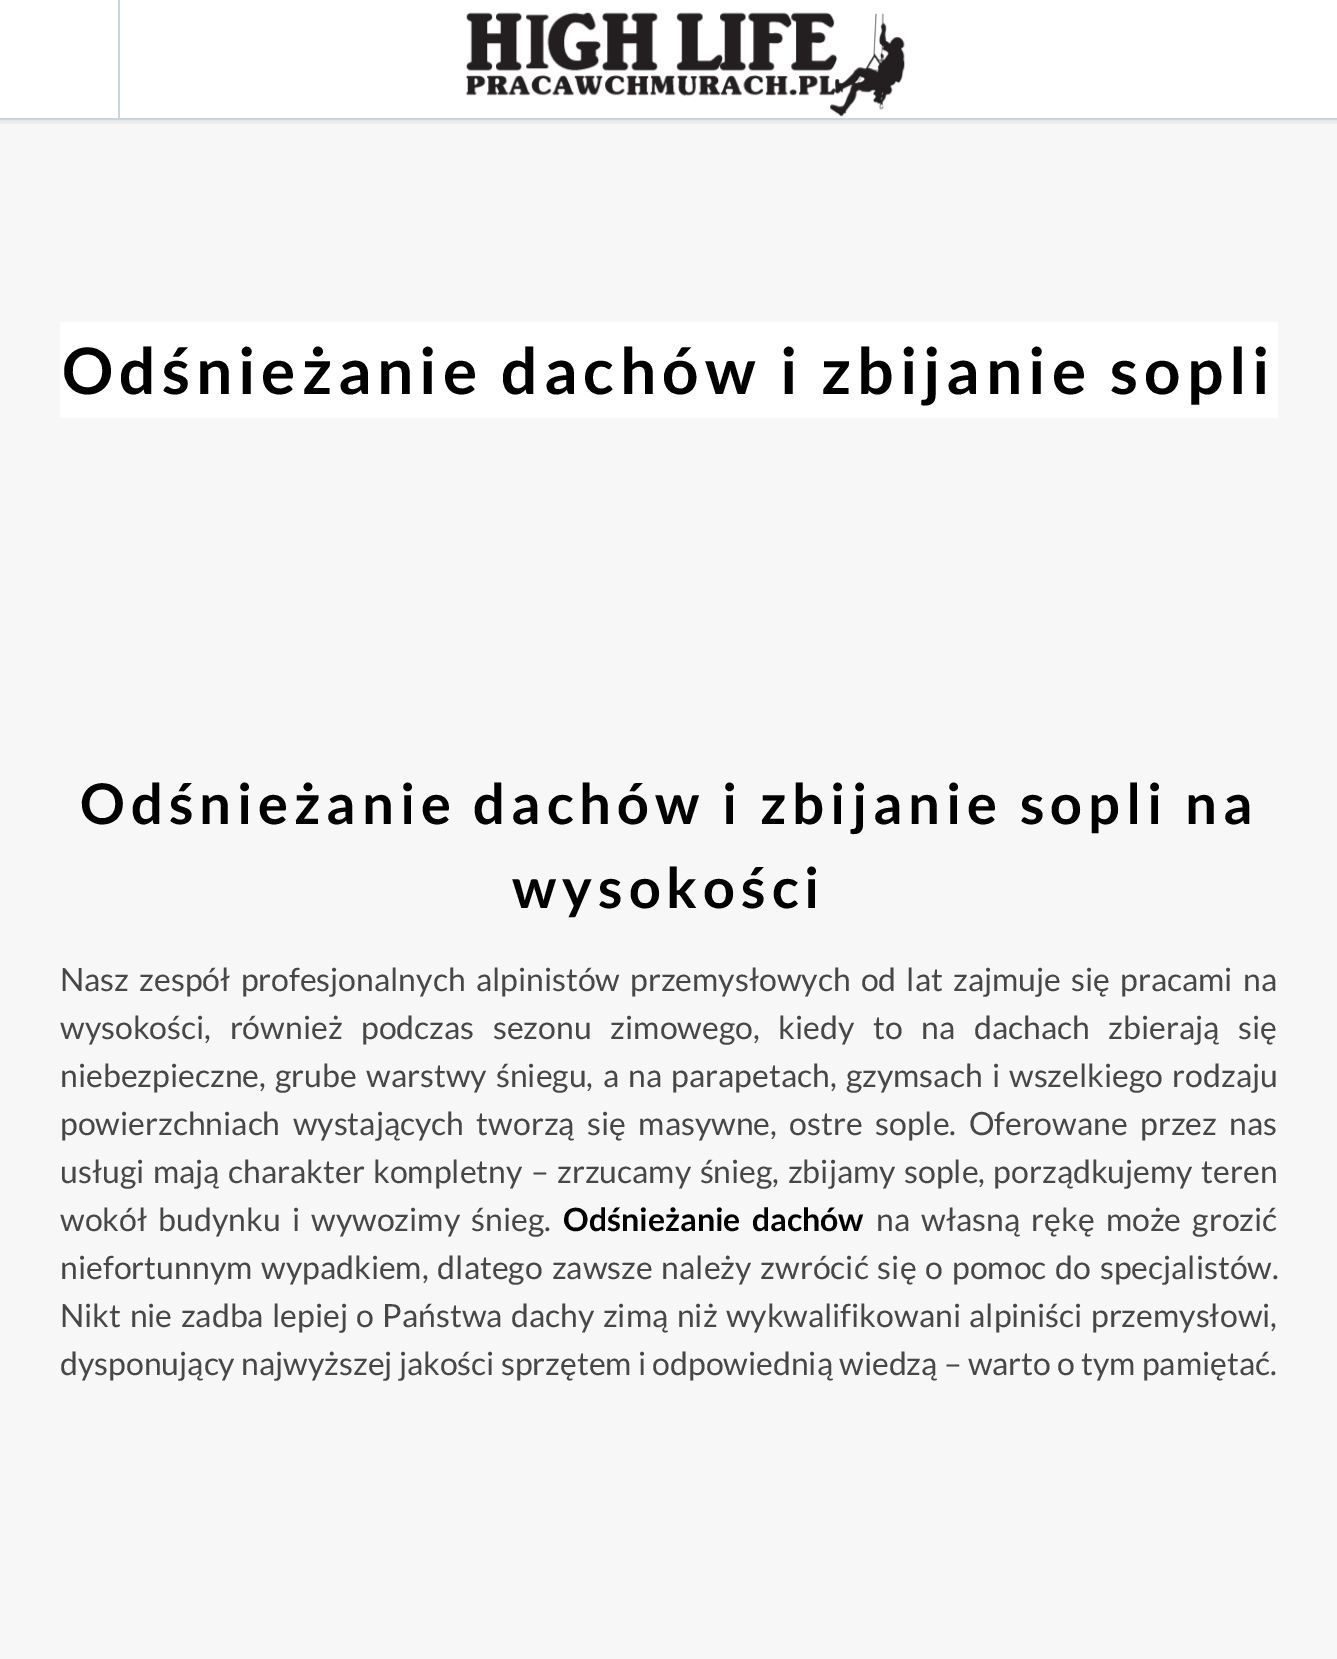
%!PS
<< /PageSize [1337 1659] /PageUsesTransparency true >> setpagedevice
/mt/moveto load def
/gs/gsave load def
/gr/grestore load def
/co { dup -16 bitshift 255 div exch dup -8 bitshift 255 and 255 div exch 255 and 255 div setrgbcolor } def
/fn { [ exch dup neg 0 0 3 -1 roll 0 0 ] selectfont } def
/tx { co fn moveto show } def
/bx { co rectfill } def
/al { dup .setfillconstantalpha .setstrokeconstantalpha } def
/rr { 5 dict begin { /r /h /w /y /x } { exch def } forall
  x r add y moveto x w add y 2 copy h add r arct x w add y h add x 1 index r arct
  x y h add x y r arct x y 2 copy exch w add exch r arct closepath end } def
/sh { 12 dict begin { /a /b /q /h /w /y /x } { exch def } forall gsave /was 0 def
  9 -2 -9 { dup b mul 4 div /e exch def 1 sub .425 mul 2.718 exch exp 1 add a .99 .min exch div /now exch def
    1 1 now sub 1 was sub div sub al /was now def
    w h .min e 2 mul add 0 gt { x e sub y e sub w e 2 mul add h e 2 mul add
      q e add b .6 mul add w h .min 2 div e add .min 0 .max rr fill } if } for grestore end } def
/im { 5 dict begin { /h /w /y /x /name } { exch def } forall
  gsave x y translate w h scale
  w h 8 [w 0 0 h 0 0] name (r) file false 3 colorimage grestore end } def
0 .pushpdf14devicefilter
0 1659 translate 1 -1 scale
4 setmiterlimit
0 0 1337 1659 16#FFFFFF bx
0 120 1337 1539 16#F7F7F7 bx
gs
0 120 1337 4 rectclip
16#000000 co
0 2 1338 120 0 3 .09 sh
gr
0 118 1337 2 16#CAD4DD bx
118 0 2 120 16#CAD4DD bx
(media/1.raw) 465 12 440 105 im
60 322 1218 96 16#FFFFFF bx
/Lato-Bold 64 fn
16#000000 co
62 394 mt 6 0 (Odśnieżanie dachów i zbijanie sopli) ashow
/Lato-Bold 56 fn
80 824 mt 6 0 (Odśnieżanie dachów i zbijanie sopli na) ashow
512 908 mt 6 0 (wysokości) ashow
/Lato-Regular 32 fn
16#474747 co
60 991 mt 4 0 32 (Nasz zespół profesjonalnych alpinistów przemysłowych od lat zajmuje się pracami na) widthshow
60 1039 mt 12.5 0 32 (wysokości, również podczas sezonu zimowego, kiedy to na dachach zbierają się) widthshow
60 1087 mt 3.1 0 32 (niebezpieczne, grube warstwy śniegu, a na parapetach, gzymsach i wszelkiego rodzaju) widthshow
60 1135 mt 6.25 0 32 (powierzchniach wystających tworzą się masywne, ostre sople. Oferowane przez nas) widthshow
60 1183 mt 2.25 0 32 (usługi mają charakter kompletny – zrzucamy śnieg, zbijamy sople, porządkujemy teren) widthshow
60 1231 mt 5 0 32 (wokół budynku i wywozimy śnieg.) widthshow
/Lato-Bold 32 fn
16#000000 co
563 1231 mt 5 0 32 (Odśnieżanie dachów) widthshow
/Lato-Regular 32 fn
16#474747 co
876 1231 mt 5 0 32 (na własną rękę może grozić) widthshow
60 1279 mt 2.75 0 32 (niefortunnym wypadkiem, dlatego zawsze należy zwrócić się o pomoc do specjalistów.) widthshow
60 1327 mt 2.25 0 32 (Nikt nie zadba lepiej o Państwa dachy zimą niż wykwalifikowani alpiniści przemysłowi,) widthshow
(dysponujący najwyższej jakości sprzętem i odpowiednią wiedzą – warto o tym pamiętać.) 60 1375 /Lato-Regular 32 16#474747 tx
.poppdf14devicefilter showpage
